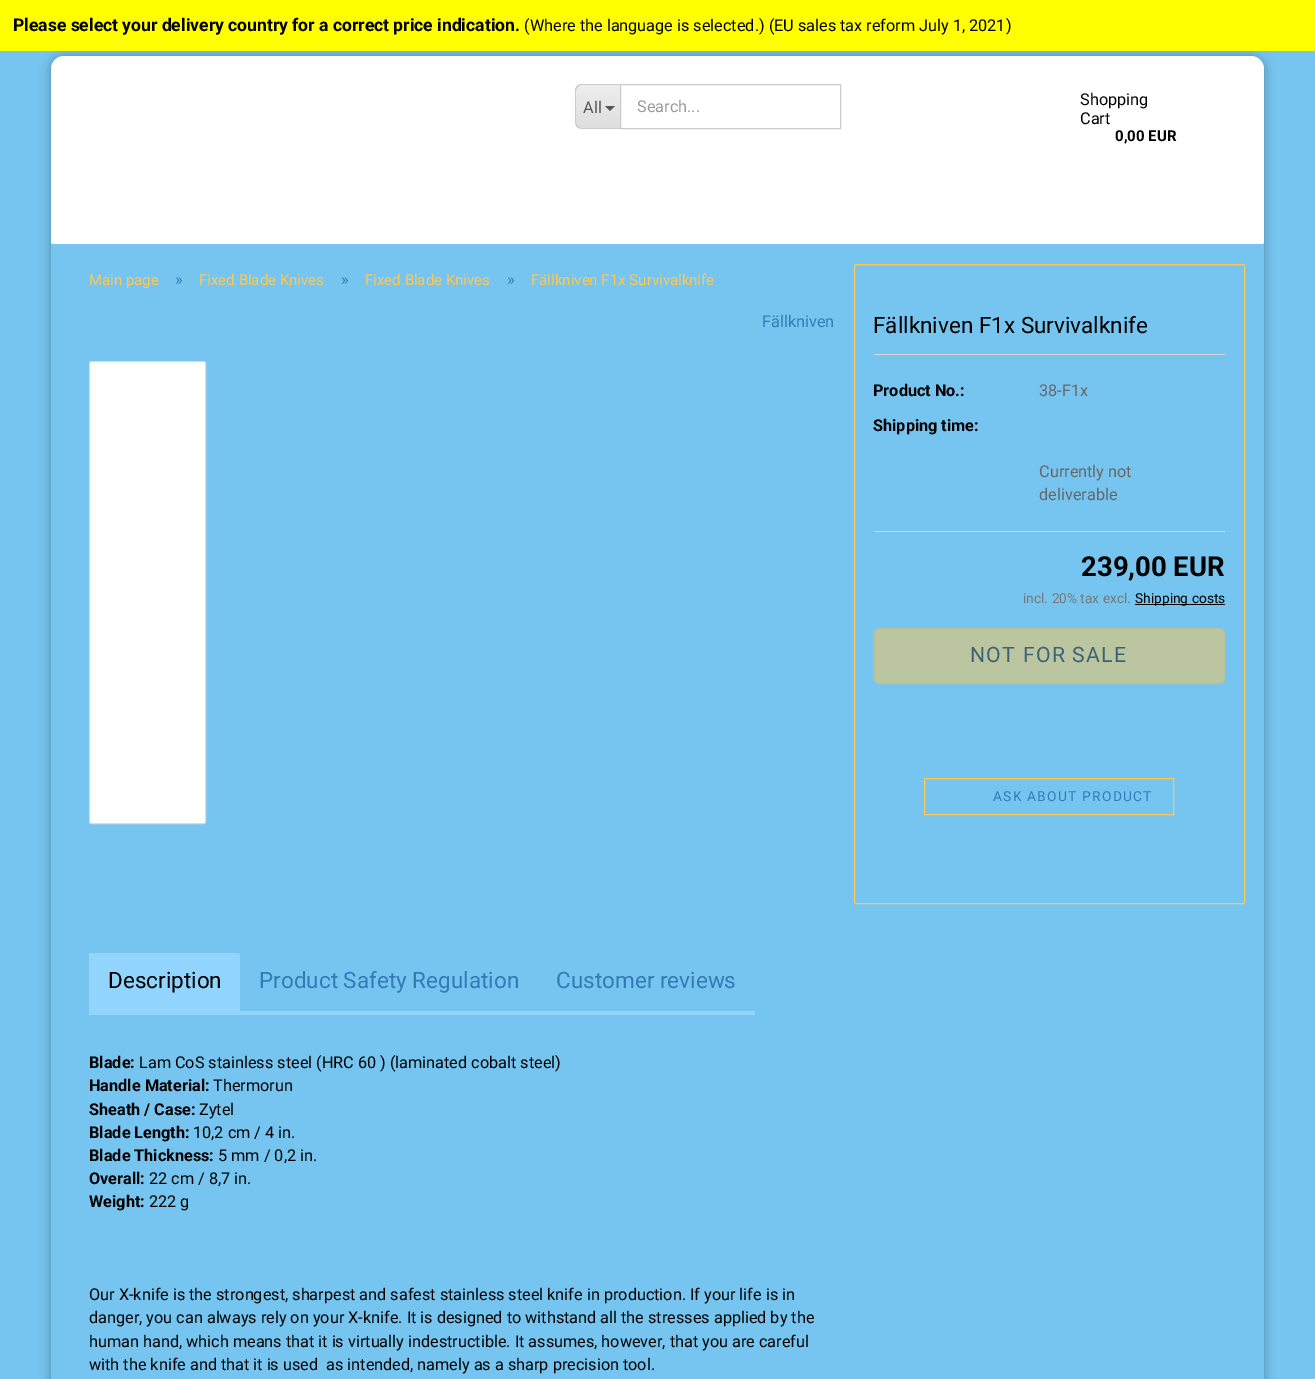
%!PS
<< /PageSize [1315 1379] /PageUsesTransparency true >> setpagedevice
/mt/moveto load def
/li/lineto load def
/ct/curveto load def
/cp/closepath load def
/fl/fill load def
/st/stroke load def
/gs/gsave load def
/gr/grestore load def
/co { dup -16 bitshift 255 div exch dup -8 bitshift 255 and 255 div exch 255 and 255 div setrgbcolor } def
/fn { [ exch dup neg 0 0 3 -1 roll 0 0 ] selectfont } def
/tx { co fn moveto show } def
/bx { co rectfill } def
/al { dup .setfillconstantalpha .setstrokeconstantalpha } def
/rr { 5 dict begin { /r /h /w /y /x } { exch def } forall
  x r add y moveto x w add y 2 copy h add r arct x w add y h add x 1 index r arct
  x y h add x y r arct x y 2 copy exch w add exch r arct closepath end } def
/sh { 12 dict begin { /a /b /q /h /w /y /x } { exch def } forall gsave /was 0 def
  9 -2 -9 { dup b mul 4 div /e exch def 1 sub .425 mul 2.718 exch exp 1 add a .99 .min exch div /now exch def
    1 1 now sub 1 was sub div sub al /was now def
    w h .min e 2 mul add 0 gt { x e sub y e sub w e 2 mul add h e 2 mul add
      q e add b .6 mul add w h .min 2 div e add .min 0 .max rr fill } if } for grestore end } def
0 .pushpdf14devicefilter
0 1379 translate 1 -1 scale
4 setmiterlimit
0 0 1315 1379 16#76C5F0 bx
gs
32 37 mt 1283 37 li 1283 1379 li 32 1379 li cp 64 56 mt 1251 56 li 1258 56 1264 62 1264 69 ct 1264 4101 li 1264 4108 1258 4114 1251 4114 ct 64 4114 li 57 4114 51 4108 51 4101 ct 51 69 li 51 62 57 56 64 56 ct cp eoclip newpath
16#000000 co
51 56 1213 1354 13 6 .3 sh
gr
16#FFFFFF co
64 56 mt 1251 56 li 1258 56 1264 62 1264 69 ct 1264 241.5 li 1264 243 1263 244 1261.5 244 ct 53.5 244 li 52 244 51 243 51 241.5 ct 51 69 li 51 62 57 56 64 56 ct cp fl
0 0 1315 51 16#FFFF00 bx
gs
583 84 mt 620 84 li 620 129 li 583 129 li 578.5 129 575 125.5 575 121 ct 575 92 li 575 87.5 578.5 84 583 84 ct cp clip newpath
gs 575 85 mt 620 85 li 620 128 li 575 128 li cp clip newpath
<< /ShadingType 2 /ColorSpace /DeviceRGB /Coords [598 85 598 128] /Extend [true true] /Function << /FunctionType 2 /Domain [0 1] /C0 [.933 .933 .933] /C1 [.871 .871 .871] /N 1 >> >> shfill gr
gr
16#CCCCCC co
582 84 mt 620 84 li 620 129 li 582 129 li 578 129 575 125 575 121 ct 575 91 li 575 87 578 84 582 84 ct cp 582 85 mt 620 85 li 620 128 li 582 128 li 579 128 576 125 576 121 ct 576 91 li 576 88 579 85 582 85 ct cp eofill
16#555555 co
605 106 mt 615 106 li 610 111 li cp fl
16#CCCCCC co
620.5 84.5 220 44 rectstroke
16#FFFFFF co
89.5 361.5 116 462 2 rr gs fl gr
16#DDDDDD co
st
16#FFC750 co
854.5 264.5 390 639 2 rr st
874 354 351 1 16#D5D5D5 bx
874 531 351 1 16#D5D5D5 bx
1135 604 90 1 16#000000 bx
16#BBC6A0 co
874.5 628.5 350 55 5.5 rr gs fl gr
16#BBC294 co
st
16#FFC750 co
924.5 778.5 249 36 rectstroke
16#91D5FF co
91.5 953 mt 237.5 953 li 239 953 240 954 240 955.5 ct 240 1015 li 89 1015 li 89 955.5 li 89 954 90 953 91.5 953 ct cp fl
240 1011 515 4 16#91D5FF bx
(Please select your delivery country for a correct price indication.) 13 31 /Roboto-Bold 17.5 16#000000 tx
(\(Where the language is selected.\) \(EU sales tax reform July 1, 2021\)) 524 31 /Roboto-Regular 16.25 16#000000 tx
(All) 583 113 /Roboto-Regular 16.25 16#555555 tx
(Search...) 637 112 /Roboto-Regular 16.25 16#999999 tx
(Shopping) 1080 105 /Roboto-Regular 16.25 16#000000 tx
(Cart) 1080 124 /Roboto-Regular 16.25 16#000000 tx
(0,00 EUR) 1115 141 /Roboto-Bold 15 16#000000 tx
(Main page) 89 285 /Roboto-Regular 15 16#FFC750 tx
(») 175 285 /Roboto-Regular 16.25 16#337AB7 tx
(Fixed Blade Knives) 199 285 /Roboto-Regular 15 16#FFC750 tx
(») 341 285 /Roboto-Regular 16.25 16#337AB7 tx
(Fixed Blade Knives) 365 285 /Roboto-Regular 15 16#FFC750 tx
(») 507 285 /Roboto-Regular 16.25 16#337AB7 tx
(Fällkniven F1x Survivalknife) 531 285 /Roboto-Regular 15 16#FFC750 tx
(Fällkniven) 762 327 /Roboto-Regular 16.25 16#337AB7 tx
(Fällkniven F1x Survivalknife) 873 333 /Roboto-Regular 22.5 16#000000 tx
(Product No.:) 873 396 /Roboto-Bold 16.25 16#000000 tx
(38-F1x) 1039 396 /Roboto-Regular 16.25 16#666666 tx
(Shipping time:) 873 431 /Roboto-Bold 16.25 16#000000 tx
(Currently not) 1039 477 /Roboto-Regular 16.25 16#666666 tx
(deliverable) 1039 500 /Roboto-Regular 16.25 16#666666 tx
(239,00 EUR) 1081 576 /Roboto-Bold 27.5 16#000000 tx
(incl. 20% tax excl.) 1023 603 /Roboto-Regular 13.75 16#777777 tx
(Shipping costs) 1135 603 /Roboto-Regular 13.75 16#000000 tx
/Roboto-Regular 21.25 fn
16#3B6378 co
970 662 mt 1.25 0 (NOT FOR SALE) ashow
/Roboto-Regular 13.75 fn
16#337AB7 co
993 801 mt 1.25 0 (ASK ABOUT PRODUCT) ashow
(Description) 108 988 /Roboto-Regular 22.5 16#000000 tx
(Product Safety Regulation) 259 988 /Roboto-Regular 22.5 16#337AB7 tx
(Customer reviews) 556 988 /Roboto-Regular 22.5 16#337AB7 tx
(Blade:) 89 1068 /Roboto-Bold 16.25 16#000000 tx
(Lam CoS stainless steel \(HRC 60 \) \(laminated cobalt steel\)) 139 1068 /Roboto-Regular 16.25 16#000000 tx
(Handle Material:) 89 1091 /Roboto-Bold 16.25 16#000000 tx
(Thermorun) 213 1091 /Roboto-Regular 16.25 16#000000 tx
(Sheath / Case:) 89 1115 /Roboto-Bold 16.25 16#000000 tx
(Zytel) 199 1115 /Roboto-Regular 16.25 16#000000 tx
(Blade Length:) 89 1138 /Roboto-Bold 16.25 16#000000 tx
(10,2 cm / 4 in.) 193 1138 /Roboto-Regular 16.25 16#000000 tx
(Blade Thickness:) 89 1161 /Roboto-Bold 16.25 16#000000 tx
(5 mm / 0,2 in.) 218 1161 /Roboto-Regular 16.25 16#000000 tx
(Overall:) 89 1184 /Roboto-Bold 16.25 16#000000 tx
(22 cm / 8,7 in.) 149 1184 /Roboto-Regular 16.25 16#000000 tx
(Weight:) 89 1207 /Roboto-Bold 16.25 16#000000 tx
(222 g) 149 1207 /Roboto-Regular 16.25 16#000000 tx
(Our X-knife is the strongest, sharpest and safest stainless steel knife in production. If your life is in) 89 1300 /Roboto-Regular 16.25 16#000000 tx
(danger, you can always rely on your X-knife. It is designed to withstand all the stresses applied by the) 89 1323 /Roboto-Regular 16.25 16#000000 tx
(human hand, which means that it is virtually indestructible. It assumes, however, that you are careful) 89 1347 /Roboto-Regular 16.25 16#000000 tx
(with the knife and that it is used  as intended, namely as a sharp precision tool.) 89 1370 /Roboto-Regular 16.25 16#000000 tx
.poppdf14devicefilter showpage
